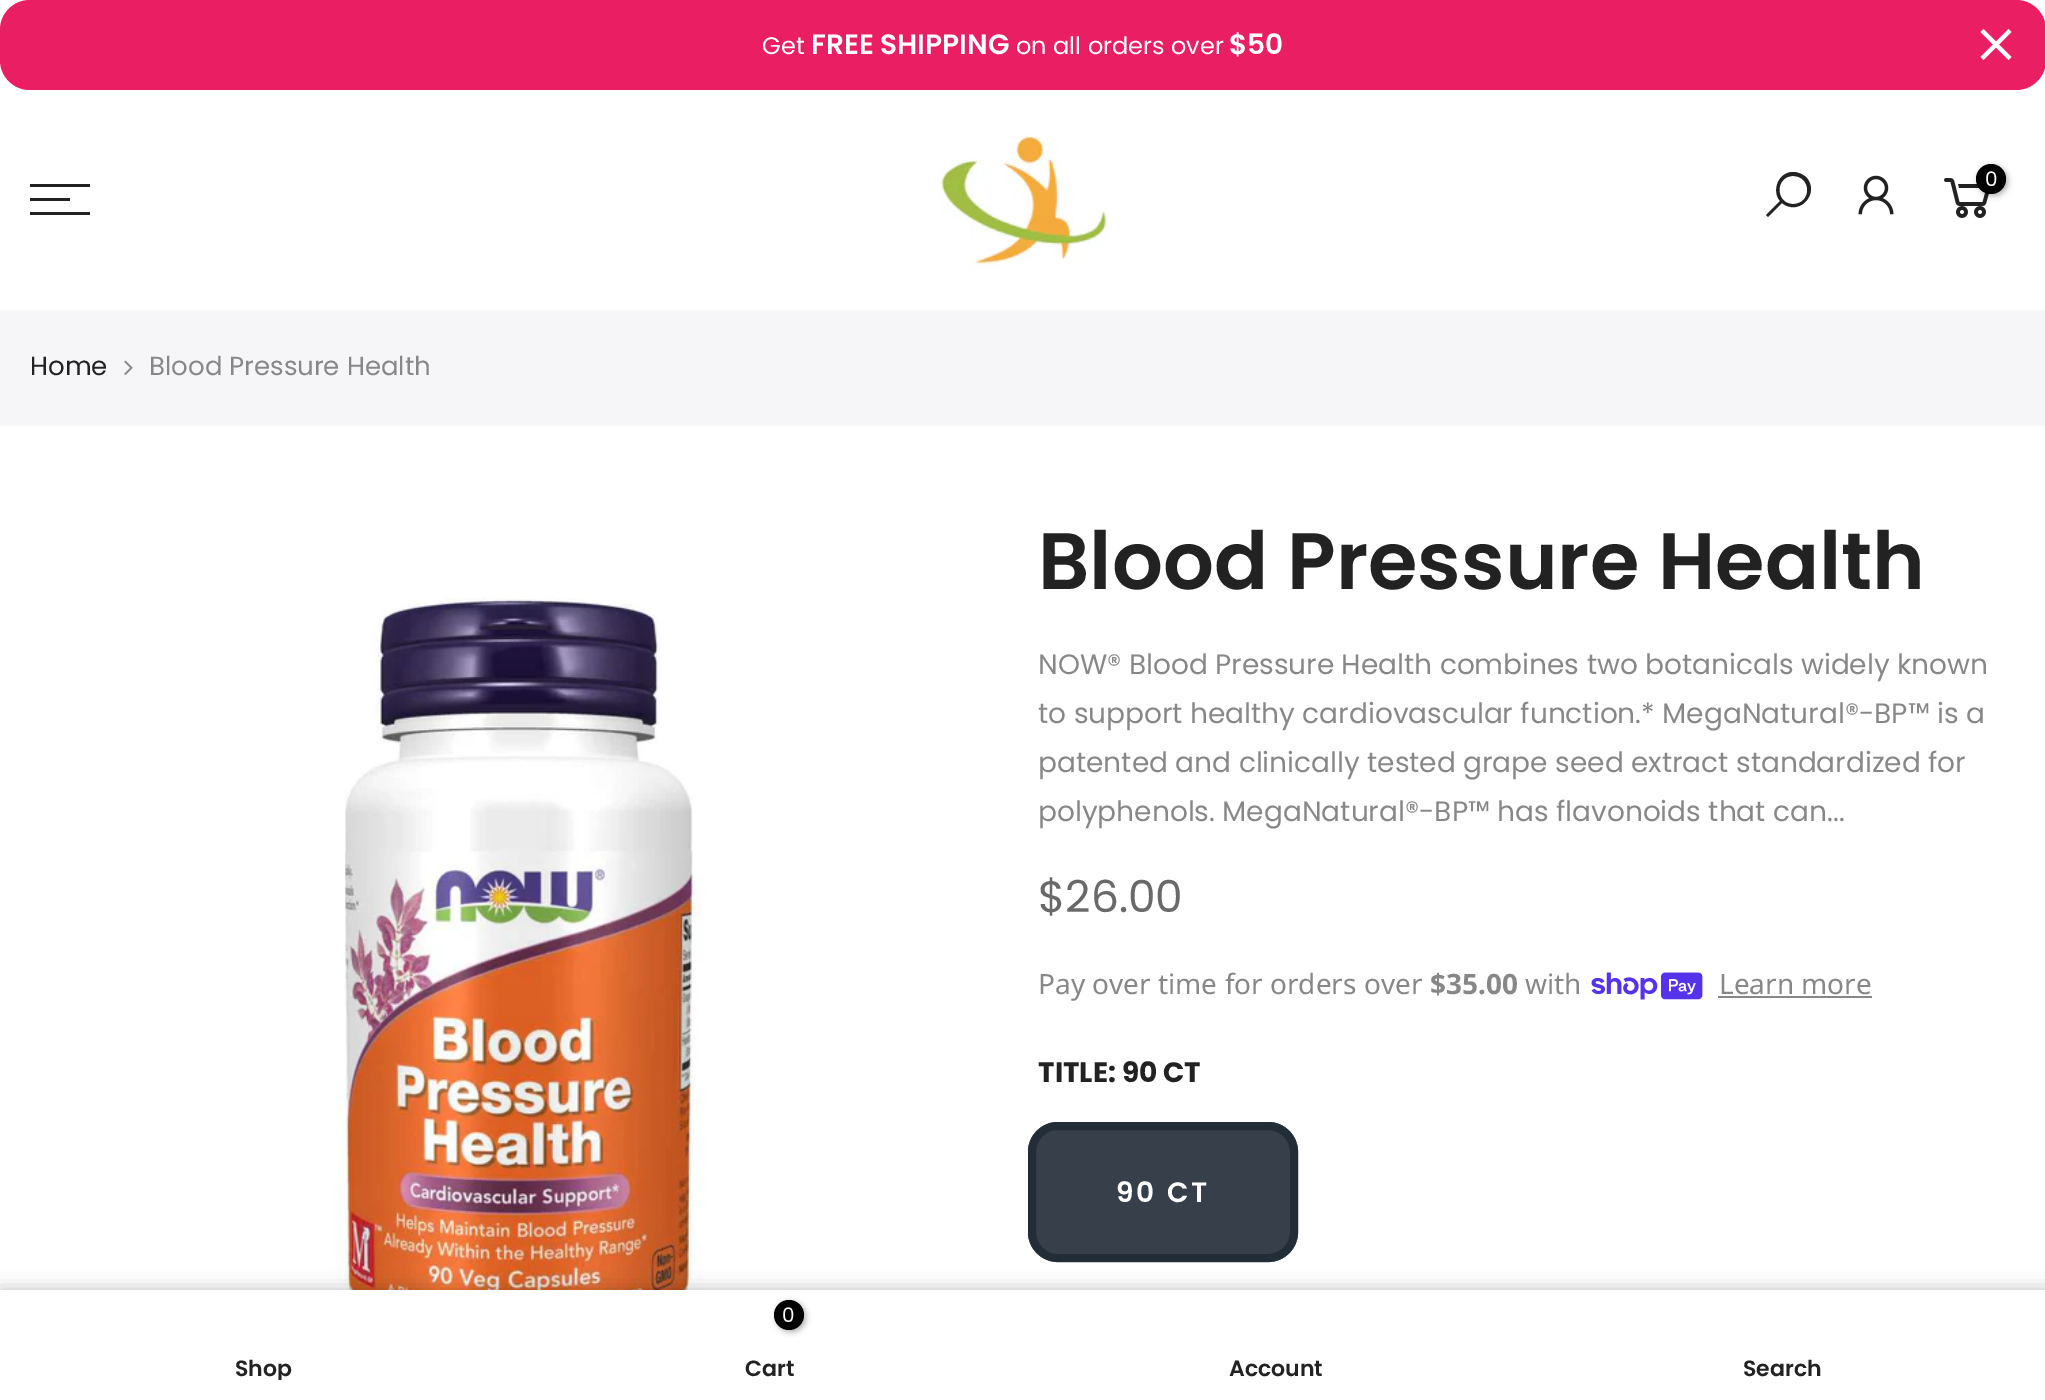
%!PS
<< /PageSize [2045 1400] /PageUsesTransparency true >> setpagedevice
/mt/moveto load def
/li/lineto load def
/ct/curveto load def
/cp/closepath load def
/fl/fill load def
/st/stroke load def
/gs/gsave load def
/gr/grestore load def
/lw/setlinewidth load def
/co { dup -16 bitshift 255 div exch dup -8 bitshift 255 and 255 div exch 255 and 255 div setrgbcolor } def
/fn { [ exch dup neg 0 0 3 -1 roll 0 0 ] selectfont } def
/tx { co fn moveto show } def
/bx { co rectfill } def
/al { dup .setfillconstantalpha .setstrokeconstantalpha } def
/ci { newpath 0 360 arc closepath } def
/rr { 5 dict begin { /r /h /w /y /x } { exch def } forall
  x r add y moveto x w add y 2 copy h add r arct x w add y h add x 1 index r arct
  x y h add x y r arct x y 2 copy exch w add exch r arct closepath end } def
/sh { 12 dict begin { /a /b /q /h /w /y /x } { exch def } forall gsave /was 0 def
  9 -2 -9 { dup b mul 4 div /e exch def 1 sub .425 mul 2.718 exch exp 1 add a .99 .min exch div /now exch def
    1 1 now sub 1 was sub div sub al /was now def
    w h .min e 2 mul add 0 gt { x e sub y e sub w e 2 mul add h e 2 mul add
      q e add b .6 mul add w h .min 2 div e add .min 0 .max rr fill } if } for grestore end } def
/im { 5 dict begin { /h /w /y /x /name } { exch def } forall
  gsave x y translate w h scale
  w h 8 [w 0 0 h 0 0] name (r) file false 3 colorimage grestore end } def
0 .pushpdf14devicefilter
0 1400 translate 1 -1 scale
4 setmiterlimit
0 0 2045 1400 16#FFFFFF bx
16#E91E63 co
0 0 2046 90 30 rr fl
16#FFFFFF co
1983.5 29 mt 2011.5 57 li 2008.5 60 li 1980.5 32 li cp fl
1980.5 57 mt 2008.5 29 li 2011.5 32 li 1983.5 60 li cp fl
(media/1.raw) 939 135 169 136 im
16#222222 co
1793 172 mt 1779 172 1771 190 1780 201 ct 1766 215 li 1768 217 li 1782 203 li 1799 217 1821 193 1806 177 ct 1802 174 1798 172 1793 172 ct cp 1793 176 mt 1812 176 1812 204 1793 204 ct 1775 204 1775 176 1793 176 ct cp fl
(media/2.raw) 1858 175 36 40 im
(media/3.raw) 1944 178 45 40 im
16#000000 co
1978 166 30 30 15 3 .3 sh
1991 179 15 ci fl
30 184 60 3 16#222222 bx
30 198 40 3 16#222222 bx
30 212 60 3 16#222222 bx
0 310 2045 116 16#F6F6F8 bx
(media/4.raw) 124 360 9 15 im
(media/5.raw) 337 596 367 694 im
(media/6.raw) 1591 972 112 28 im
1718 996 154 2 16#878787 bx
16#37404A co
1028 1122 270 140 30 rr fl
0.9 al
16#212B36 co
8 lw
1032 1126 262 132 26 rr st
1 al
16#000000 co
0 1290 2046 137 0 9 .12 sh
0 1290 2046 110 0 9 .12 sh
0 1290 2045 110 16#FFFFFF bx
16#000000 co
776 1302 30 30 15 3 .3 sh
789 1315 15 ci fl
(Get) 762 54 /Poppins-Regular 24 16#FFFFFF tx
(FREE SHIPPING) 811 54 /Poppins-SemiBold 28 16#FFFFFF tx
(on all orders over) 1016 54 /Poppins-Regular 24 16#FFFFFF tx
($50) 1229 54 /Poppins-SemiBold 28 16#FFFFFF tx
(0) 1985 186 /Poppins-Regular 20 16#FFFFFF tx
(Home) 30 375 /Poppins-Regular 26 16#222222 tx
(Blood Pressure Health) 149 375 /Poppins-Regular 26 16#878787 tx
(Blood Pressure Health) 1038 589 /Poppins-SemiBold 80 16#222222 tx
(NOW® Blood Pressure Health combines two botanicals widely known) 1038 674 /Poppins-Regular 28 16#878787 tx
(to support healthy cardiovascular function.* MegaNatural®-BP™ is a) 1038 723 /Poppins-Regular 28 16#878787 tx
(patented and clinically tested grape seed extract standardized for) 1038 772 /Poppins-Regular 28 16#878787 tx
(polyphenols. MegaNatural®-BP™ has flavonoids that can...) 1038 821 /Poppins-Regular 28 16#878787 tx
($26.00) 1038 912 /Poppins-Regular 44 16#696969 tx
(Pay over time for orders over) 1038 994 /NotoSans-Regular 28 16#878787 tx
($35.00) 1430 994 /NotoSans-Bold 28 16#878787 tx
(with) 1525 994 /NotoSans-Regular 28 16#878787 tx
(Learn more) 1719 994 /NotoSans-Regular 28 16#878787 tx
(TITLE: 90 CT) 1038 1082 /Poppins-Bold 28 16#222222 tx
/Poppins-SemiBold 28 fn
16#FFFFFF co
1116 1202 mt 2.75 0 (90 CT) ashow
gs
30 1358 466 22 rectclip
(Shop) 235 1376 /Poppins-SemiBold 22 16#222222 tx
gr
(0) 782 1322 /Poppins-Regular 20 16#FFFFFF tx
(Cart) 745 1376 /Poppins-SemiBold 22 16#222222 tx
(Account) 1229 1376 /Poppins-SemiBold 22 16#222222 tx
(Search) 1743 1376 /Poppins-SemiBold 22 16#222222 tx
.poppdf14devicefilter showpage
